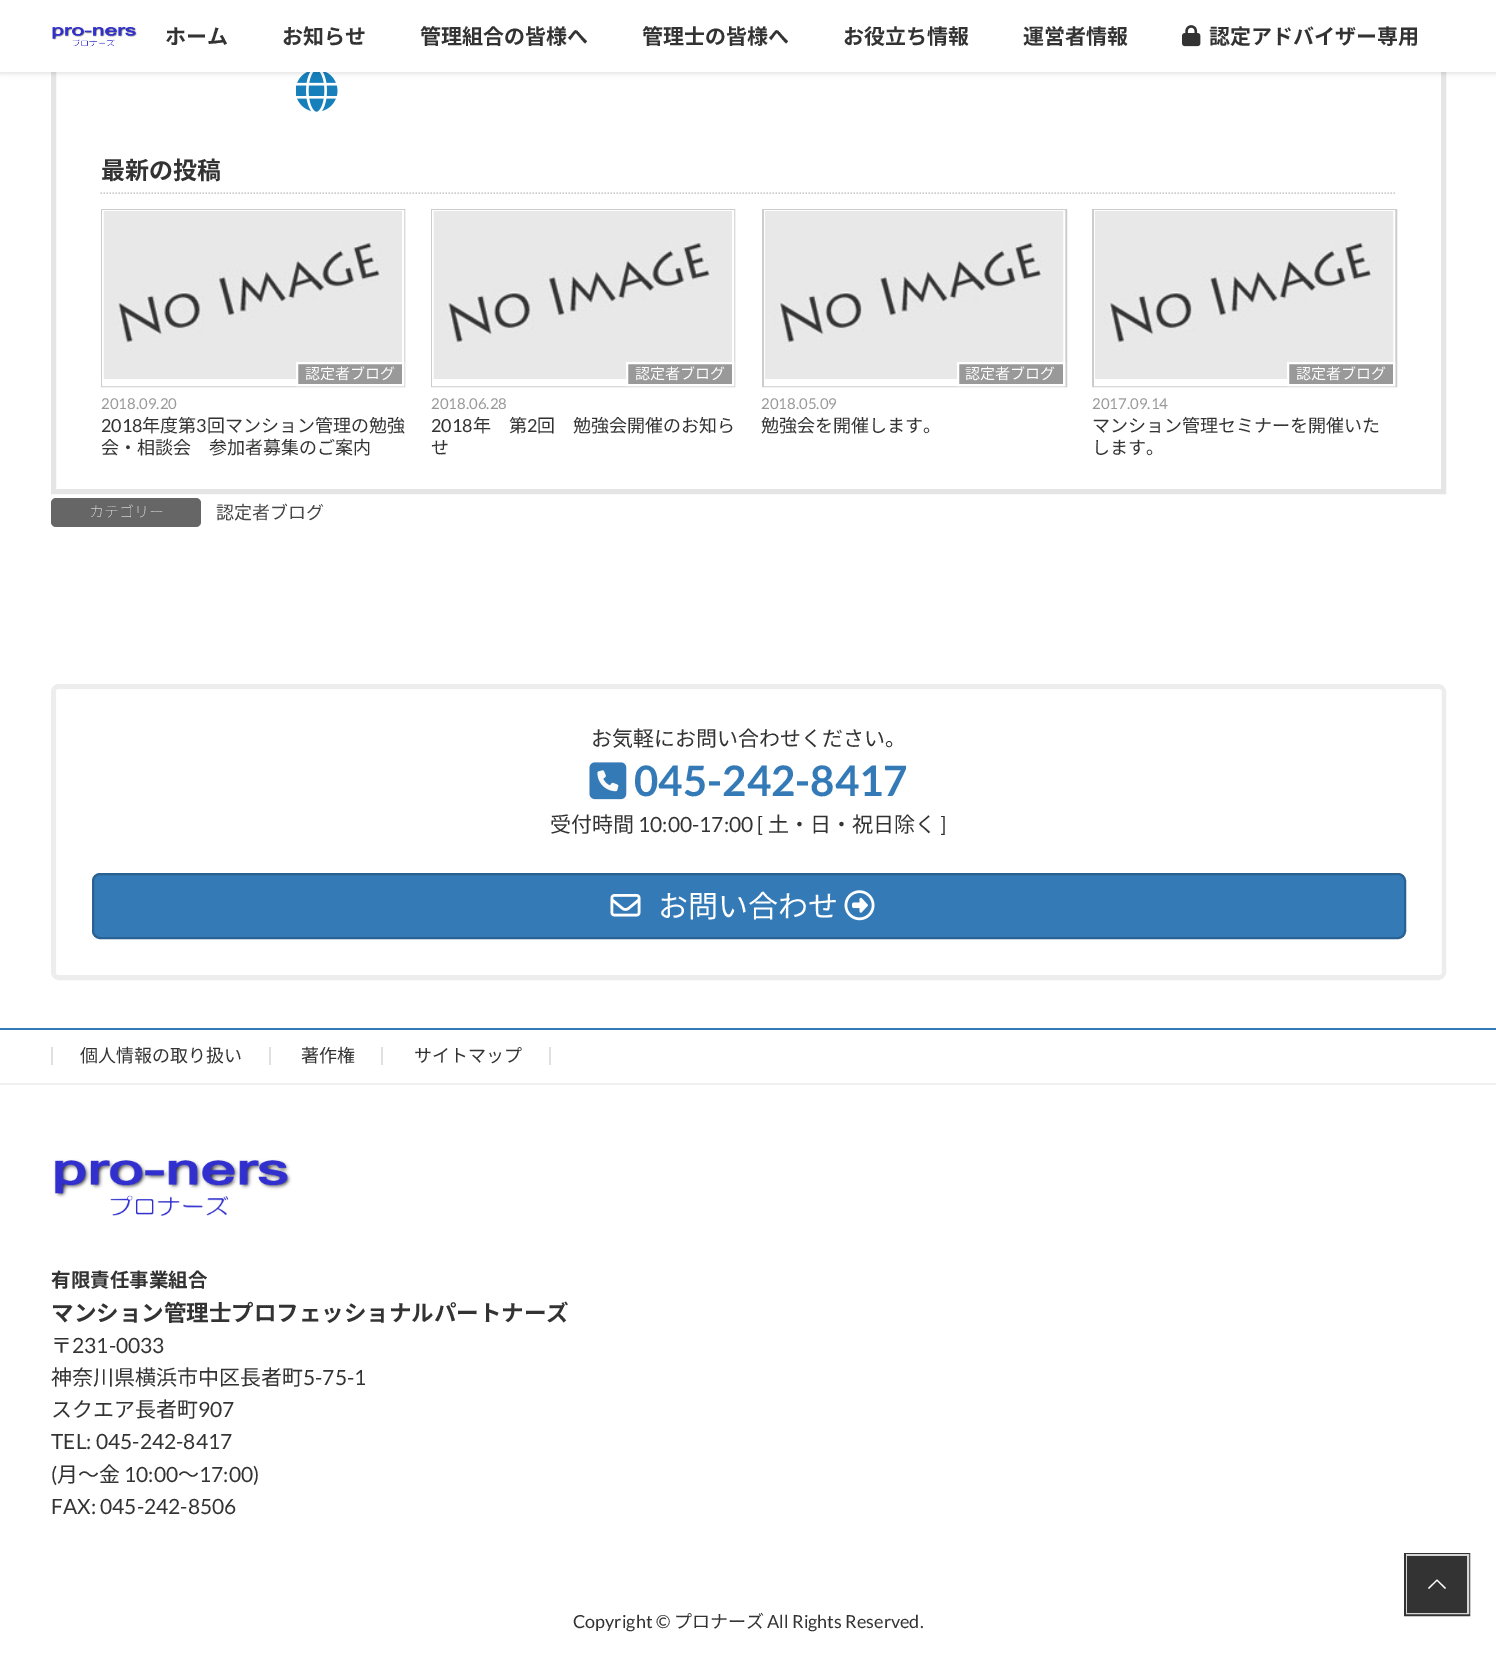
%!PS
<< /PageSize [1496 1661] /PageUsesTransparency true >> setpagedevice
/mt/moveto load def
/li/lineto load def
/ct/curveto load def
/cp/closepath load def
/fl/fill load def
/st/stroke load def
/gs/gsave load def
/gr/grestore load def
/lw/setlinewidth load def
/co { dup -16 bitshift 255 div exch dup -8 bitshift 255 and 255 div exch 255 and 255 div setrgbcolor } def
/fn { [ exch dup neg 0 0 3 -1 roll 0 0 ] selectfont } def
/tx { co fn moveto show } def
/bx { co rectfill } def
/al { dup .setfillconstantalpha .setstrokeconstantalpha } def
/rr { 5 dict begin { /r /h /w /y /x } { exch def } forall
  x r add y moveto x w add y 2 copy h add r arct x w add y h add x 1 index r arct
  x y h add x y r arct x y 2 copy exch w add exch r arct closepath end } def
/sh { 12 dict begin { /a /b /q /h /w /y /x } { exch def } forall gsave /was 0 def
  9 -2 -9 { dup b mul 4 div /e exch def 1 sub .425 mul 2.718 exch exp 1 add a .99 .min exch div /now exch def
    1 1 now sub 1 was sub div sub al /was now def
    w h .min e 2 mul add 0 gt { x e sub y e sub w e 2 mul add h e 2 mul add
      q e add b .6 mul add w h .min 2 div e add .min 0 .max rr fill } if } for grestore end } def
/im { 5 dict begin { /h /w /y /x /name } { exch def } forall
  gsave x y translate w h scale
  w h 8 [w 0 0 h 0 0] name (r) file false 3 colorimage grestore end } def
0 .pushpdf14devicefilter
0 1661 translate 1 -1 scale
4 setmiterlimit
0 0 1496 1661 16#FFFFFF bx
16#E5E5E5 co
5 lw
53.5 -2.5 1390 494 rectstroke
(media/3.raw) 296 72 42 40 im
16#000000 co
0 2 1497 72 0 2 .1 sh
0 0 1496 72 16#FFFFFF bx
(media/1.raw) 52 27 85 20 im
(media/2.raw) 1182 25 19 22 im
16#CCCCCC co
1.5 lw
[1.5 1.5] 0 setdash
100.5 193 mt 1396.5 193 li st
2 lw
[] 0 setdash
102 210 302 176 rectstroke
16#FFFFFF co
103 211 300 174 rectstroke
(media/4.raw) 103 211 299 168 im
16#999999 co
297 363 mt 403 363 li 403 385 li 297 385 li cp gs fl gr
16#FFFFFF co
st
16#CCCCCC co
432 210 302 176 rectstroke
16#FFFFFF co
433 211 300 174 rectstroke
(media/4.raw) 433 211 299 168 im
16#999999 co
627 363 mt 733 363 li 733 385 li 627 385 li cp gs fl gr
16#FFFFFF co
st
16#CCCCCC co
763 210 303 176 rectstroke
16#FFFFFF co
765 211 299 174 rectstroke
(media/5.raw) 765 211 299 168 im
16#999999 co
958 363 mt 1064 363 li 1064 385 li 958 385 li cp gs fl gr
16#FFFFFF co
st
16#CCCCCC co
1093 210 303 176 rectstroke
16#FFFFFF co
1095 211 299 174 rectstroke
(media/6.raw) 1095 211 299 168 im
16#999999 co
1288 363 mt 1394 363 li 1394 385 li 1288 385 li cp gs fl gr
16#FFFFFF co
st
16#666666 co
51 498 150 29 5 rr fl
16#EDEDED co
5 lw
53.5 686.5 1390 291 5.5 rr st
0.8 al
16#FFFFFF co
59 689 mt 57 689 56 690 56 692 ct 56 972 li 56 974 57 975 59 975 ct 1439 975 li 1441 975 1442 974 1442 972 ct 1442 692 li 1442 690 1441 689 1439 689 ct cp 58 691 mt 58 973 li 1440 973 li 1440 691 li cp eofill
1 al
(media/7.raw) 589 762 38 38 im
16#337AB7 co
93 874 1312 64 7 rr gs fl gr
16#296292 co
2 lw
st
(media/8.raw) 610 894 31 23 im
(media/9.raw) 844 890 31 31 im
0 1028 1496 2 16#337AB7 bx
0 1083 1496 2 16#F0F0F0 bx
269 1047 2 18 16#E0E0E0 bx
51 1047 2 18 16#E0E0E0 bx
381 1047 2 18 16#E0E0E0 bx
549 1047 2 18 16#E0E0E0 bx
(media/10.raw) 54 1159 238 57 im
16#333333 co
3 lw
1405.5 1554.5 63 60 rectstroke
0.8 al
16#FFFFFF co
2 lw
1407 1555 61 58 rectstroke
1 al
1407 1556 60 57 16#333333 bx
16#FFFFFF co
1446 1588 mt 1445 1589 li 1437 1581 li 1429 1589 li 1428 1588 li 1437 1579.5 li cp fl
(ホーム) 165 44 /NotoSansJP-Bold 21 16#333333 tx
(お知らせ) 282 44 /NotoSansJP-Bold 21 16#333333 tx
(管理組合の皆様へ) 420 44 /NotoSansJP-Bold 21 16#333333 tx
(管理士の皆様へ) 642 44 /NotoSansJP-Bold 21 16#333333 tx
(お役立ち情報) 843 44 /NotoSansJP-Bold 21 16#333333 tx
(運営者情報) 1023 44 /NotoSansJP-Bold 21 16#333333 tx
(認定アドバイザー専用) 1209 44 /NotoSansJP-Bold 21 16#333333 tx
(最新の投稿) 101 179 /NotoSansJP-Bold 24 16#333333 tx
(認定者ブログ) 305 379 /NotoSansJP-Regular 15 16#FFFFFF tx
(2018.09.20) 101 409 /Lato-Regular 15 16#999999 tx
(2018) 101 432 /Lato-Regular 18 16#333333 tx
(年度第) 142 432 /NotoSansJP-Regular 18 16#333333 tx
(3) 196 432 /Lato-Regular 18 16#333333 tx
(回マンション管理の勉強) 207 432 /NotoSansJP-Regular 18 16#333333 tx
(会・相談会　参加者募集のご案内) 101 454 /NotoSansJP-Regular 18 16#333333 tx
(認定者ブログ) 635 379 /NotoSansJP-Regular 15 16#FFFFFF tx
(2018.06.28) 431 409 /Lato-Regular 15 16#999999 tx
(2018) 431 432 /Lato-Regular 18 16#333333 tx
(年　第) 473 432 /NotoSansJP-Regular 18 16#333333 tx
(2) 527 432 /Lato-Regular 18 16#333333 tx
(回　勉強会開催のお知ら) 537 432 /NotoSansJP-Regular 18 16#333333 tx
(せ) 431 454 /NotoSansJP-Regular 18 16#333333 tx
(認定者ブログ) 965 379 /NotoSansJP-Regular 15 16#FFFFFF tx
(2018.05.09) 761 409 /Lato-Regular 15 16#999999 tx
(勉強会を開催します。) 761 432 /NotoSansJP-Regular 18 16#333333 tx
(認定者ブログ) 1296 379 /NotoSansJP-Regular 15 16#FFFFFF tx
(2017.09.14) 1092 409 /Lato-Regular 15 16#999999 tx
(マンション管理セミナーを開催いた) 1092 432 /NotoSansJP-Regular 18 16#333333 tx
(します。) 1092 454 /NotoSansJP-Regular 18 16#333333 tx
(カテゴリー) 89 517 /NotoSansJP-Thin 15 16#FFFFFF tx
(認定者ブログ) 216 519 /NotoSansJP-Regular 18 16#464646 tx
(お気軽にお問い合わせください。) 591 746 /NotoSansJP-Regular 21 16#333333 tx
(045-242-8417) 634 796 /Lato-Bold 42 16#337AB7 tx
(受付時間) 550 832 /NotoSansJP-Regular 21 16#333333 tx
(10:00-17:00 [) 638 832 /Lato-Regular 21 16#333333 tx
(土・日・祝日除く) 768 832 /NotoSansJP-Regular 21 16#333333 tx
(]) 940 832 /Lato-Regular 21 16#333333 tx
(お問い合わせ) 658 917 /NotoSansJP-Regular 30 16#FFFFFF tx
(個人情報の取り扱い) 80 1062 /NotoSansJP-Regular 18 16#333333 tx
(著作権) 301 1062 /NotoSansJP-Regular 18 16#333333 tx
(サイトマップ) 414 1062 /NotoSansJP-Regular 18 16#333333 tx
(有限責任事業組合) 51 1287 /NotoSansJP-Bold 19.5 16#333333 tx
(マンション管理士プロフェッショナルパートナーズ) 51 1321 /NotoSansJP-Bold 22.5 16#333333 tx
(〒) 51 1353 /NotoSansJP-Regular 21 16#333333 tx
(231-0033) 72 1353 /Lato-Regular 21 16#333333 tx
(神奈川県横浜市中区長者町) 51 1385 /NotoSansJP-Regular 21 16#333333 tx
(5-75-1) 303 1385 /Lato-Regular 21 16#333333 tx
(スクエア長者町) 51 1417 /NotoSansJP-Regular 21 16#333333 tx
(907) 198 1417 /Lato-Regular 21 16#333333 tx
(TEL: 045-242-8417) 51 1449 /Lato-Regular 21 16#333333 tx
(\() 51 1482 /Lato-Regular 21 16#333333 tx
(月～金) 57 1482 /NotoSansJP-Regular 21 16#333333 tx
(10:00) 124 1482 /Lato-Regular 21 16#333333 tx
(～) 178 1482 /NotoSansJP-Regular 21 16#333333 tx
(17:00\)) 199 1482 /Lato-Regular 21 16#333333 tx
(FAX: 045-242-8506) 51 1514 /Lato-Regular 21 16#333333 tx
(Copyright ©) 573 1628 /Lato-Regular 18 16#333333 tx
(プロナーズ) 674 1628 /NotoSansJP-Regular 18 16#333333 tx
(All Rights Reserved.) 767 1628 /Lato-Regular 18 16#333333 tx
.poppdf14devicefilter showpage
